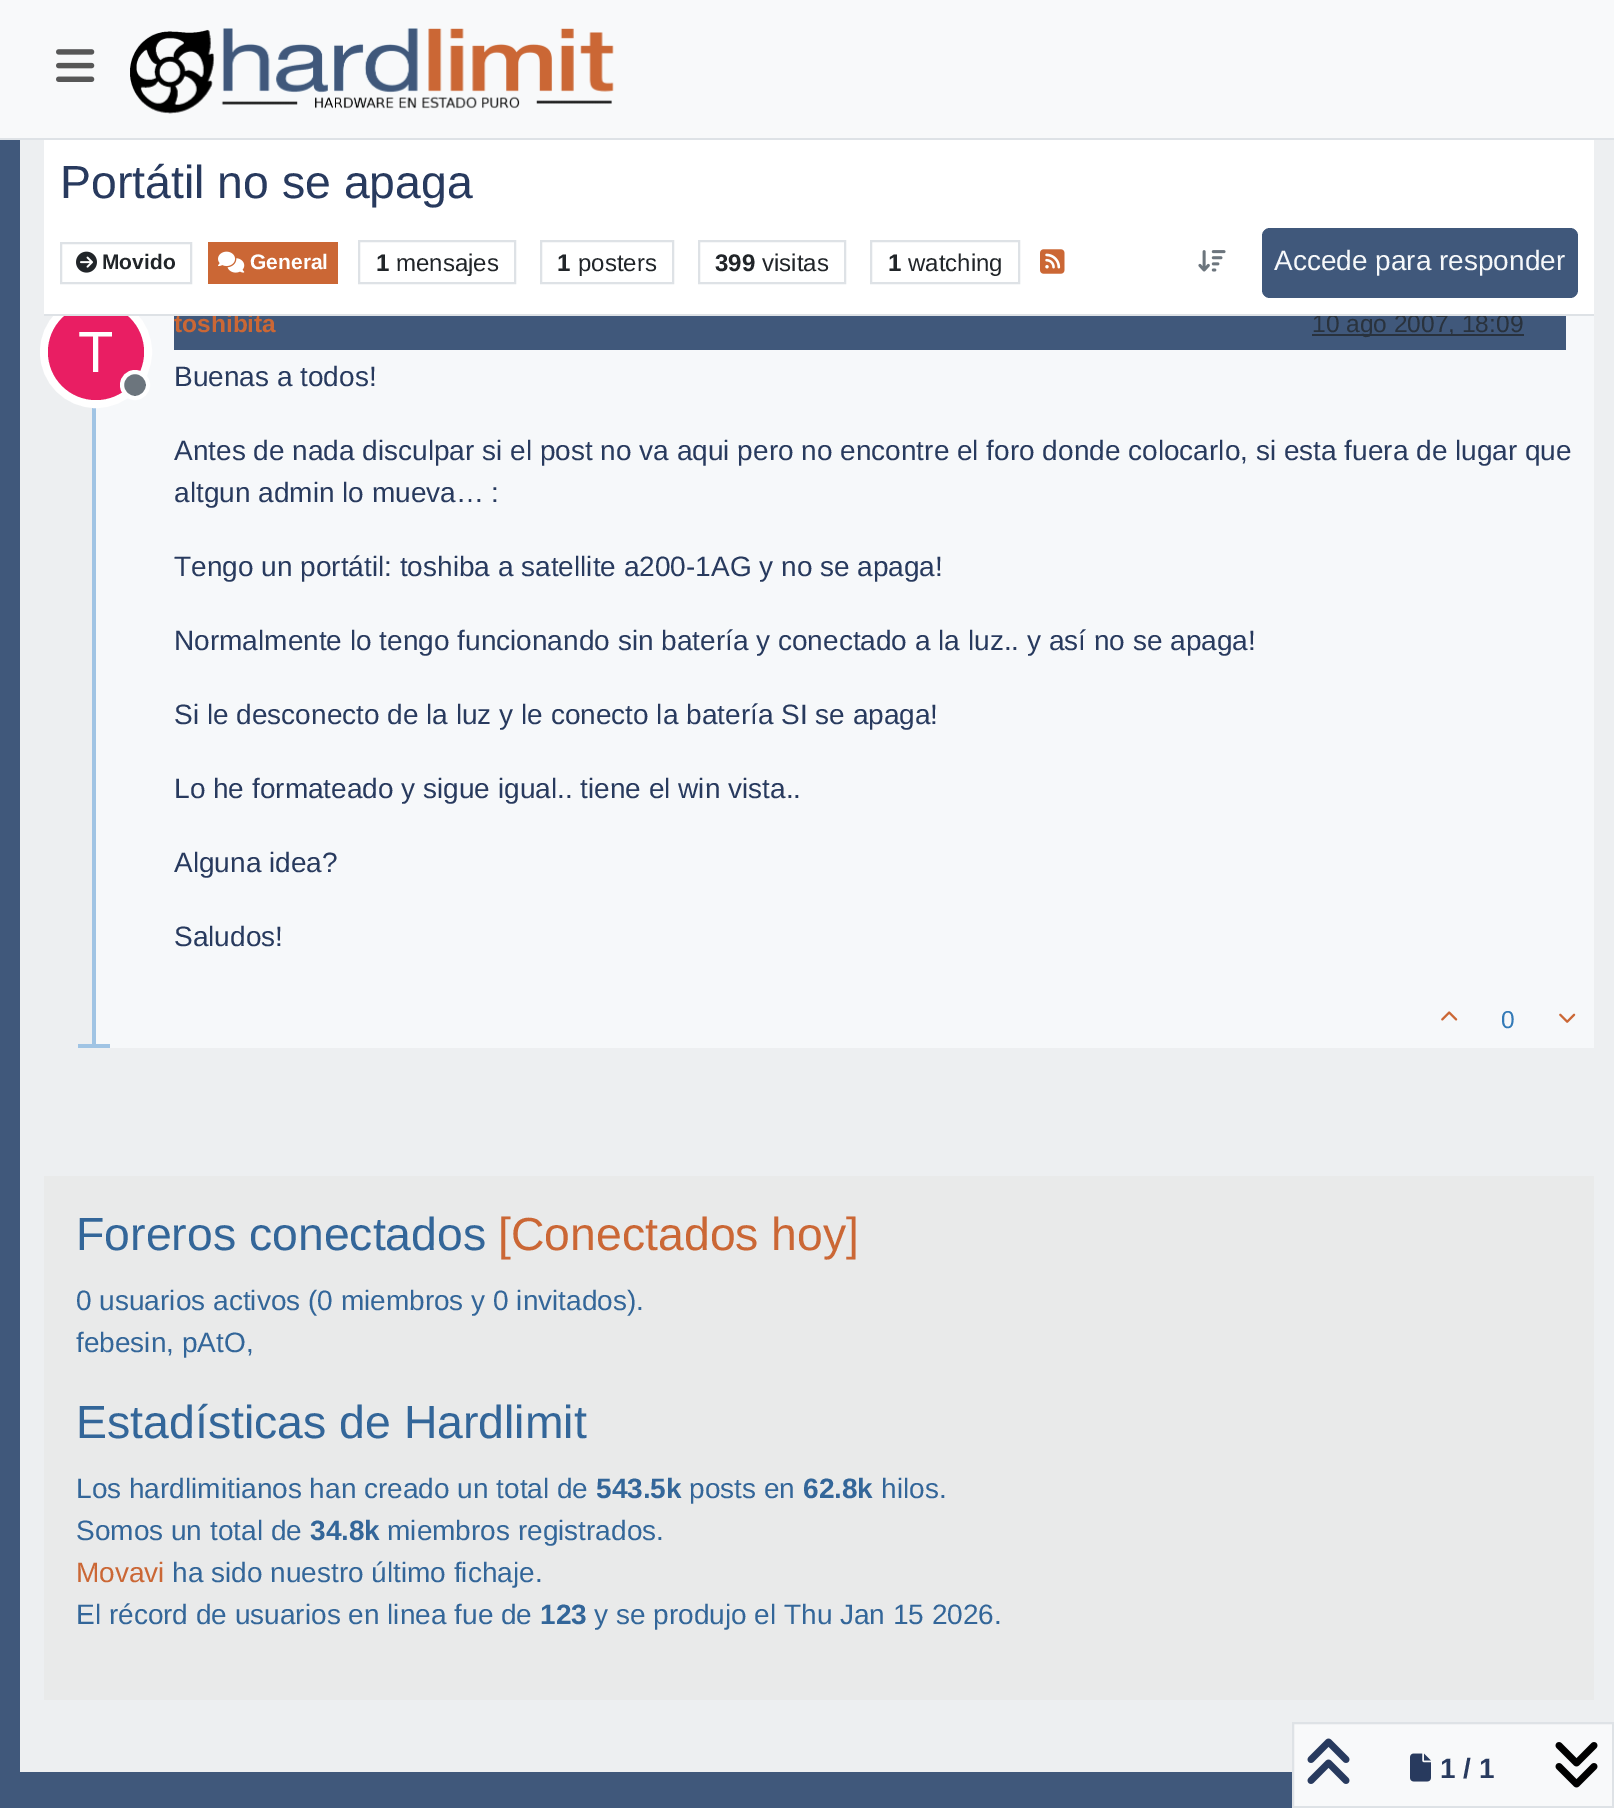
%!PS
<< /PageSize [1614 1808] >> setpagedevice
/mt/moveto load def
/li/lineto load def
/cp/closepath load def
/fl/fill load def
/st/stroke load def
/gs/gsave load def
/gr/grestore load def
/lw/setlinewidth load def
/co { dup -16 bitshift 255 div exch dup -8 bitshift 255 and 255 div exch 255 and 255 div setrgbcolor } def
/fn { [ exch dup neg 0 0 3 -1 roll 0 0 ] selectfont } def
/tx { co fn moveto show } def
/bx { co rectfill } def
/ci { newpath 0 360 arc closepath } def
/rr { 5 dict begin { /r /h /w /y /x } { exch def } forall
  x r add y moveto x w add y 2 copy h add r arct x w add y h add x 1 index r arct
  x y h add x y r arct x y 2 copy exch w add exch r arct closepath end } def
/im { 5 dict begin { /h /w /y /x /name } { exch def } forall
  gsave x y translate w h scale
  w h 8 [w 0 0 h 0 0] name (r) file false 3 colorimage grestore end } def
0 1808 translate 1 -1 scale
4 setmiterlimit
0 0 1614 1808 16#40587B bx
0 0 1614 138 16#F8F9FA bx
0 138 1614 2 16#DEE2E6 bx
(media/1.raw) 56 49 39 33 im
(media/2.raw) 130 28 484 86 im
20 140 1594 1632 16#EDEFF1 bx
96 316 1498 732 16#F6F8FA bx
92 399 4 649 16#A0C4E4 bx
16#FFFFFF co
8 lw
96 352 52 ci st
16#E91E63 co
96 352 48 ci fl
44 140 1550 174 16#FFFFFF bx
16#DEE2E6 co
2 lw
61 243 130 40 rectstroke
(media/3.raw) 76 251 21 22 im
208 242 130 42 16#CB6735 bx
(media/4.raw) 218 251 27 22 im
16#DEE2E6 co
359 241 156 42 rectstroke
541 241 132 42 rectstroke
699 241 146 42 rectstroke
871 241 148 42 rectstroke
(media/5.raw) 1040 249 25 25 im
(media/6.raw) 1198 250 28 22 im
16#40587B co
1262 228 316 70 8 rr fl
174 316 1392 34 16#40587B bx
1312 334 212 2 16#29323E bx
16#6C757D co
135 385 13 ci gs fl gr
16#FFFFFF co
4 lw
st
(media/7.raw) 1441 1011 17 10 im
(media/8.raw) 1559 1013 17 10 im
78 1044 32 4 16#A0C4E4 bx
16#F8F9FA co
1293 1723 mt 1613 1723 li 1613 1807 li 1293 1807 li cp gs fl gr
16#DEE2E6 co
2 lw
st
(media/9.raw) 1307 1738 43 46 im
(media/10.raw) 1410 1753 21 29 im
(media/11.raw) 1555 1742 43 46 im
44 1176 1550 524 16#E9EAEA bx
(Portátil no se apaga) 60 198 /LiberationSans-Regular 46.4 16#283A5E tx
(Movido) 102 269 /LiberationSans-Bold 21 16#212529 tx
(General) 250 269 /LiberationSans-Bold 21 16#FFFFFF tx
(1) 376 271 /LiberationSans-Bold 24 16#212529 tx
(mensajes) 396 271 /LiberationSans-Regular 24 16#212529 tx
(1) 557 271 /LiberationSans-Bold 24 16#212529 tx
(posters) 578 271 /LiberationSans-Regular 24 16#212529 tx
(399) 715 271 /LiberationSans-Bold 24 16#212529 tx
(visitas) 762 271 /LiberationSans-Regular 24 16#212529 tx
(1) 888 271 /LiberationSans-Bold 24 16#212529 tx
(watching) 908 271 /LiberationSans-Regular 24 16#212529 tx
(Accede para responder) 1274 270 /LiberationSans-Regular 28 16#F6F8FA tx
(toshibita) 174 332 /LiberationSans-Bold 24.5 16#CB6735 tx
(10 ago 2007, 18:09) 1312 332 /LiberationSans-Regular 24.5 16#29323D tx
44 314 1550 2 16#DEE2E6 bx
(T) 78 372 /LiberationSans-Regular 58 16#FFFFFF tx
(Buenas a todos!) 174 386 /LiberationSans-Regular 28 16#283A5E tx
(Antes de nada disculpar si el post no va aqui pero no encontre el foro donde colocarlo, si esta fuera de lugar que) 174 460 /LiberationSans-Regular 28 16#283A5E tx
(altgun admin lo mueva… :) 174 502 /LiberationSans-Regular 28 16#283A5E tx
(Tengo un portátil: toshiba a satellite a200-1AG y no se apaga!) 174 576 /LiberationSans-Regular 28 16#283A5E tx
(Normalmente lo tengo funcionando sin batería y conectado a la luz.. y así no se apaga!) 174 650 /LiberationSans-Regular 28 16#283A5E tx
(Si le desconecto de la luz y le conecto la batería SI se apaga!) 174 724 /LiberationSans-Regular 28 16#283A5E tx
(Lo he formateado y sigue igual.. tiene el win vista..) 174 798 /LiberationSans-Regular 28 16#283A5E tx
(Alguna idea?) 174 872 /LiberationSans-Regular 28 16#283A5E tx
(Saludos!) 174 946 /LiberationSans-Regular 28 16#283A5E tx
(0) 1501 1028 /LiberationSans-Regular 24.5 16#337AB7 tx
(1 / 1) 1440 1778 /LiberationSans-Bold 28 16#283A5E tx
(Foreros conectados) 76 1250 /LiberationSans-Regular 46.4 16#336699 tx
([Conectados hoy]) 498 1250 /LiberationSans-Regular 46.4 16#CB6735 tx
(0 usuarios activos \(0 miembros y 0 invitados\).) 76 1310 /LiberationSans-Regular 28 16#336699 tx
(febesin, pAtO,) 76 1352 /LiberationSans-Regular 28 16#336699 tx
(Estadísticas de Hardlimit) 76 1438 /LiberationSans-Regular 46.4 16#336699 tx
(Los hardlimitianos han creado un total de) 76 1498 /LiberationSans-Regular 28 16#336699 tx
(543.5k) 596 1498 /LiberationSans-Bold 28 16#336699 tx
(posts en) 689 1498 /LiberationSans-Regular 28 16#336699 tx
(62.8k) 803 1498 /LiberationSans-Bold 28 16#336699 tx
(hilos.) 881 1498 /LiberationSans-Regular 28 16#336699 tx
(Somos un total de) 76 1540 /LiberationSans-Regular 28 16#336699 tx
(34.8k) 310 1540 /LiberationSans-Bold 28 16#336699 tx
(miembros registrados.) 387 1540 /LiberationSans-Regular 28 16#336699 tx
(Movavi) 76 1582 /LiberationSans-Regular 28 16#CB6735 tx
(ha sido nuestro último fichaje.) 172 1582 /LiberationSans-Regular 28 16#336699 tx
(El récord de usuarios en linea fue de) 76 1624 /LiberationSans-Regular 28 16#336699 tx
(123) 540 1624 /LiberationSans-Bold 28 16#336699 tx
(y se produjo el Thu Jan 15 2026.) 594 1624 /LiberationSans-Regular 28 16#336699 tx
showpage
